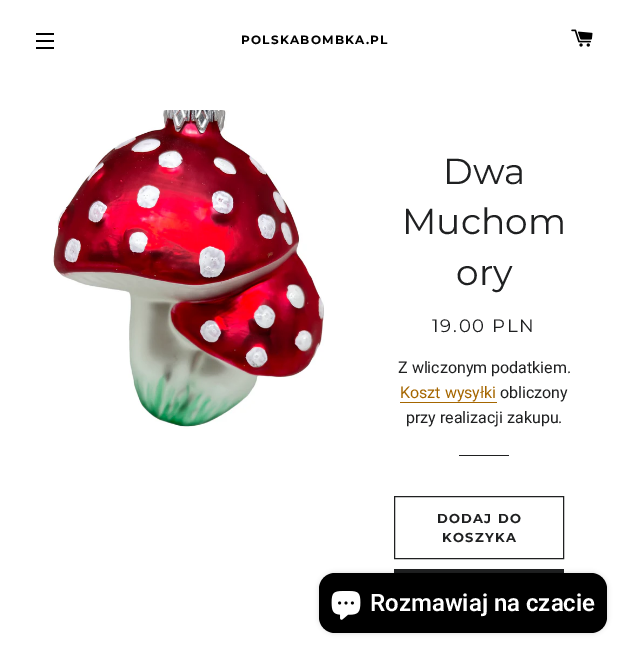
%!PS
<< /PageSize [629 654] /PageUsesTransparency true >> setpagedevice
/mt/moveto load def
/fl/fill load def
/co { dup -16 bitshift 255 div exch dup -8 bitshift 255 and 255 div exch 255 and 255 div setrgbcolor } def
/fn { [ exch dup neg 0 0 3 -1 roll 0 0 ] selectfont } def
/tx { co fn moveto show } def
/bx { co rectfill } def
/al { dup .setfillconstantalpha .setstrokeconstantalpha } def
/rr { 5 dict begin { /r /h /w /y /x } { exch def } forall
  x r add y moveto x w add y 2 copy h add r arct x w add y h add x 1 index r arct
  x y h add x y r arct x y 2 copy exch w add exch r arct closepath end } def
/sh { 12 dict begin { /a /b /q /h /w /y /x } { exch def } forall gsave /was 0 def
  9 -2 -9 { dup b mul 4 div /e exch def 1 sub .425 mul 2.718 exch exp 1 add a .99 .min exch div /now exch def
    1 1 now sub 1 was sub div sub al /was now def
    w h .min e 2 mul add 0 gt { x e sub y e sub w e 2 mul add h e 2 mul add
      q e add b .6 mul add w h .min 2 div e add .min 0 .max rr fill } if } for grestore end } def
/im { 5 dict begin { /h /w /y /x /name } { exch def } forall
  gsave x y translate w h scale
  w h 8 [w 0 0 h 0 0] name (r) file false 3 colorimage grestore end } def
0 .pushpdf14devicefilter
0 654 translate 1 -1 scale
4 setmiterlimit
0 0 629 654 16#FFFFFF bx
36 33 18 2 16#000000 bx
36 40 18 2 16#000000 bx
36 47 18 2 16#000000 bx
(media/1.raw) 571 29 22 18 im
(media/2.raw) 30 110 319 319 im
400 402 97 1 16#A56600 bx
459 455 50 1 16#1F2021 bx
394.5 496.5 169 62 rectstroke
394 569 170 4 16#1F2021 bx
16#000000 co
319 573 288 60 16 2.5 .15 sh
319 573 288 60 16 rr fl
(media/3.raw) 331 591 30 29 im
/Montserrat-Bold 12 fn
241 44 mt 1.25 0 (POLSKABOMBKA.PL) ashow
(Dwa) 443 184 /Montserrat-Regular 36 16#1F2021 tx
(Muchom) 402 234 /Montserrat-Regular 36 16#1F2021 tx
(ory) 456 285 /Montserrat-Regular 36 16#1F2021 tx
/Montserrat-Regular 18 fn
432 332 mt 1.75 0 (19.00 PLN) ashow
(Z wliczonym podatkiem.) 398 373 /Roboto-Regular 16 16#1F2021 tx
(Koszt wysyłki) 400 398 /Roboto-Regular 16 16#A56600 tx
(obliczony) 500 398 /Roboto-Regular 16 16#1F2021 tx
(przy realizacji zakupu.) 406 423 /Roboto-Regular 16 16#1F2021 tx
/Montserrat-Bold 13 fn
437 523 mt 1.25 0 (DODAJ DO) ashow
442 542 mt 1.25 0 (KOSZYKA) ashow
(Rozmawiaj na czacie) 370 611 /Roboto-SemiBold 24 16#FFFFFF tx
.poppdf14devicefilter showpage
